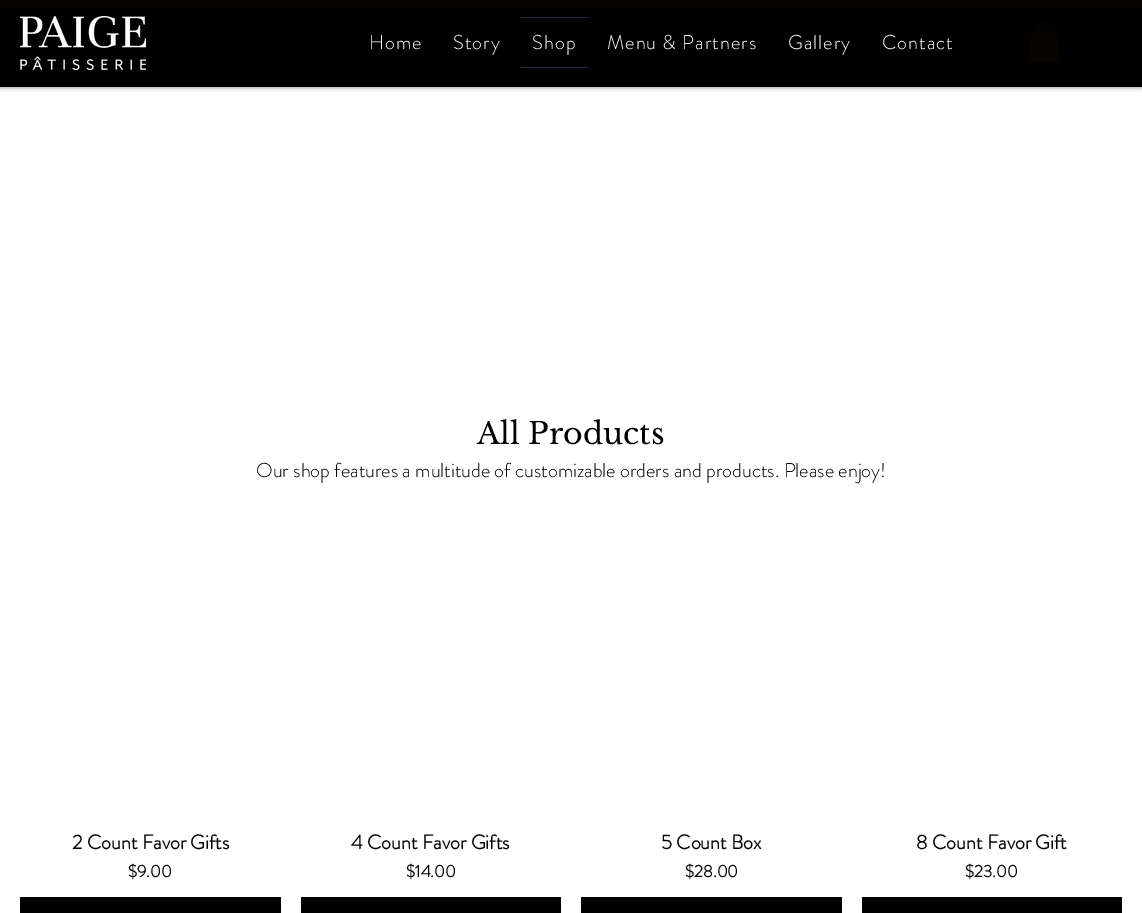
%!PS
<< /PageSize [1142 913] /PageUsesTransparency true >> setpagedevice
/mt/moveto load def
/co { dup -16 bitshift 255 div exch dup -8 bitshift 255 and 255 div exch 255 and 255 div setrgbcolor } def
/fn { [ exch dup neg 0 0 3 -1 roll 0 0 ] selectfont } def
/tx { co fn moveto show } def
/bx { co rectfill } def
/al { dup .setfillconstantalpha .setstrokeconstantalpha } def
/rr { 5 dict begin { /r /h /w /y /x } { exch def } forall
  x r add y moveto x w add y 2 copy h add r arct x w add y h add x 1 index r arct
  x y h add x y r arct x y 2 copy exch w add exch r arct closepath end } def
/sh { 12 dict begin { /a /b /q /h /w /y /x } { exch def } forall gsave /was 0 def
  9 -2 -9 { dup b mul 4 div /e exch def 1 sub .425 mul 2.718 exch exp 1 add a .99 .min exch div /now exch def
    1 1 now sub 1 was sub div sub al /was now def
    w h .min e 2 mul add 0 gt { x e sub y e sub w e 2 mul add h e 2 mul add
      q e add b .6 mul add w h .min 2 div e add .min 0 .max rr fill } if } for grestore end } def
/im { 5 dict begin { /h /w /y /x /name } { exch def } forall
  gsave x y translate w h scale
  w h 8 [w 0 0 h 0 0] name (r) file false 3 colorimage grestore end } def
0 .pushpdf14devicefilter
0 913 translate 1 -1 scale
4 setmiterlimit
0 0 1142 913 16#FFFFFF bx
16#000000 co
0 0 1142 87 0 2.5 .5 sh
0 0 1142 87 16#080500 bx
0 8 1142 78 16#000000 bx
(media/1.raw) 20 16 126 54 im
520 17 68 1 16#1C2E3B bx
520 67 68 1 16#1C2E3B bx
(media/2.raw) 1028 22 32 41 im
20 897 261 16 16#000000 bx
301 897 260 16 16#000000 bx
581 897 261 16 16#000000 bx
862 897 260 16 16#000000 bx
/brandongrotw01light-Light 20 fn
16#FFFDF9 co
369 49 mt 1 0 (Home) ashow
453 49 mt 1 0 (Story) ashow
532 49 mt 1 0 (Shop) ashow
607 49 mt 1 0 (Menu & Partners) ashow
788 49 mt 1 0 (Gallery) ashow
882 49 mt 1 0 (Contact) ashow
(All Products) 477 444 /LibreBaskerville-Regular 30 16#000000 tx
(Our shop features a multitude of customizable orders and products. Please enjoy!) 256 477 /brandongrotw01light-Light 20 16#000000 tx
(2 Count Favor Gifts) 72 849 /brandongrotw01light-Bold 20 16#000000 tx
($9.00) 128 877 /brandongrotw01light-Bold 17 16#000000 tx
(4 Count Favor Gifts) 351 849 /brandongrotw01light-Bold 20 16#000000 tx
($14.00) 406 877 /brandongrotw01light-Bold 17 16#000000 tx
(5 Count Box) 661 849 /brandongrotw01light-Bold 20 16#000000 tx
($28.00) 685 877 /brandongrotw01light-Bold 17 16#000000 tx
(8 Count Favor Gift) 916 849 /brandongrotw01light-Bold 20 16#000000 tx
($23.00) 965 877 /brandongrotw01light-Bold 17 16#000000 tx
.poppdf14devicefilter showpage
